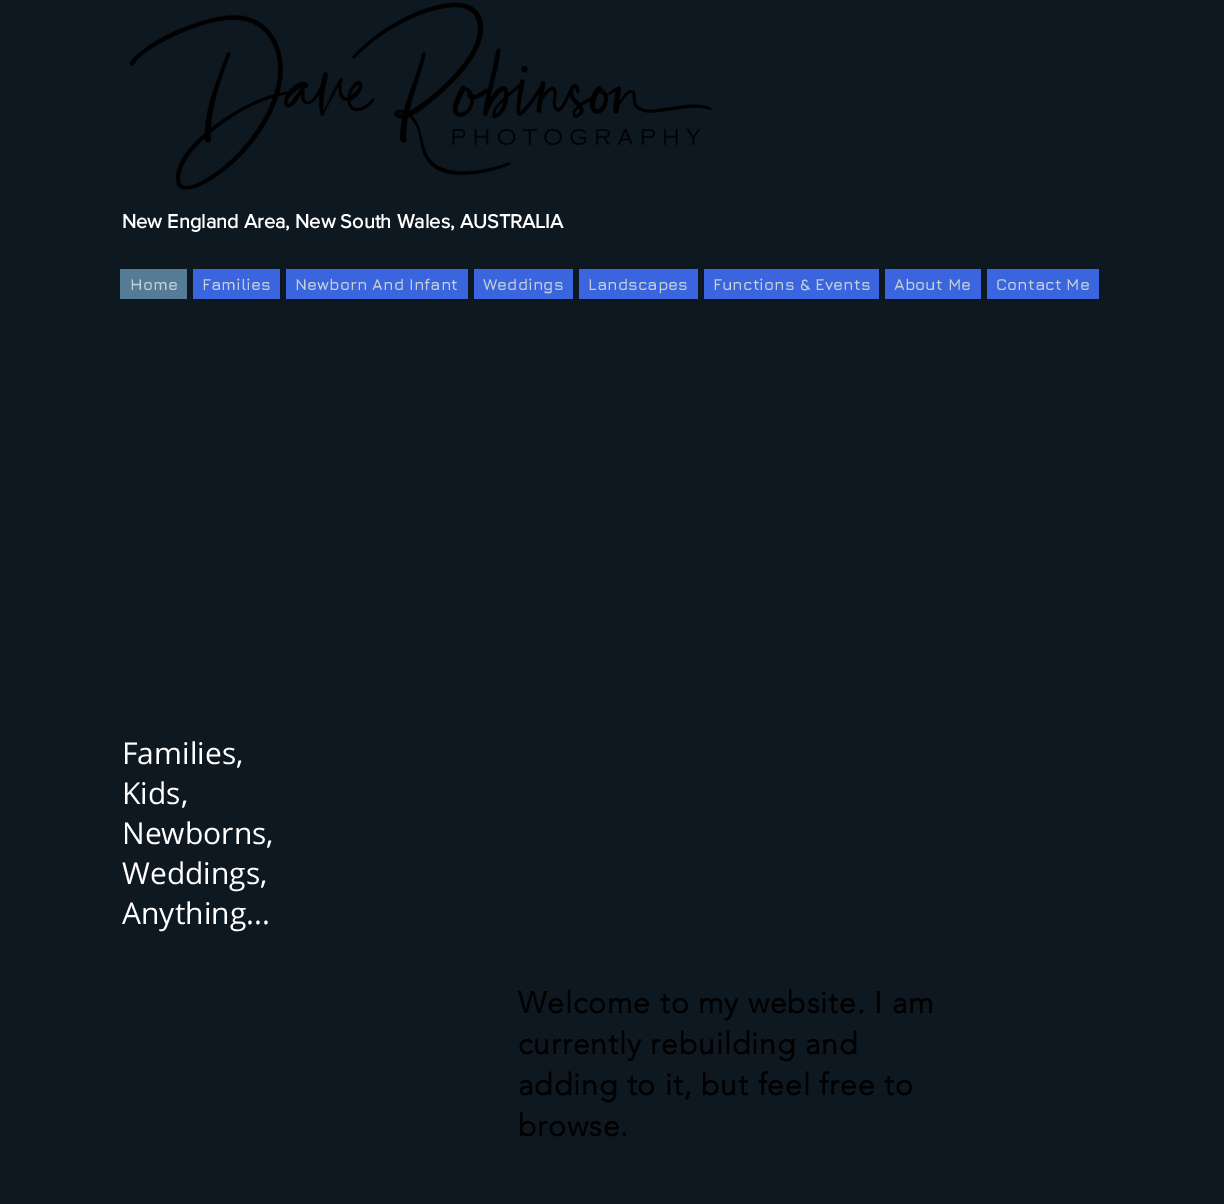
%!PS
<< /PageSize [1224 1204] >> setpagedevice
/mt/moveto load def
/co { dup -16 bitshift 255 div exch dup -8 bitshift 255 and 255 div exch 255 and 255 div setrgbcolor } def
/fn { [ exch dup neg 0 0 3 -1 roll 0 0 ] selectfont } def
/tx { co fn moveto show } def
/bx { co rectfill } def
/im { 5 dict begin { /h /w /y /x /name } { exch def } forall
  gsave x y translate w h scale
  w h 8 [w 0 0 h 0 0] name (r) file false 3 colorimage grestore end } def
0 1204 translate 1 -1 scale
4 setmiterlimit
0 0 1224 1204 16#0E1821 bx
(media/1.raw) 129 2 583 188 im
120 269 67 30 16#567B96 bx
193 269 87 30 16#3A65DE bx
286 269 182 30 16#3A65DE bx
474 269 99 30 16#3A65DE bx
579 269 119 30 16#3A65DE bx
704 269 175 30 16#3A65DE bx
885 269 96 30 16#3A65DE bx
987 269 112 30 16#3A65DE bx
(New England Area, New South Wales, AUSTRALIA) 122 228 /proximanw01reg-Bold 20 16#FFFFFF tx
(Home) 130 290 /Jura-Bold 16 16#C5D0D9 tx
(Families) 202 290 /Jura-Bold 16 16#C5D0D9 tx
(Newborn And Infant) 295 290 /Jura-Bold 16 16#C5D0D9 tx
(Weddings) 483 290 /Jura-Bold 16 16#C5D0D9 tx
(Landscapes) 588 290 /Jura-Bold 16 16#C5D0D9 tx
(Functions & Events) 713 290 /Jura-Bold 16 16#C5D0D9 tx
(About Me) 894 290 /Jura-Bold 16 16#C5D0D9 tx
(Contact Me) 996 290 /Jura-Bold 16 16#C5D0D9 tx
(Families,) 122 764 /OpenSans-Regular 30 16#FFFFFF tx
(Kids,) 122 804 /OpenSans-Regular 30 16#FFFFFF tx
(Newborns,) 122 844 /OpenSans-Regular 30 16#FFFFFF tx
(Weddings,) 122 884 /OpenSans-Regular 30 16#FFFFFF tx
(Anything...) 122 924 /OpenSans-Regular 30 16#FFFFFF tx
/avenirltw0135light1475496-Bold 30 fn
16#000000 co
518 1013 mt .9 0 (Welcome to my website. I am) ashow
518 1054 mt .9 0 (currently rebuilding and) ashow
518 1095 mt .9 0 (adding to it, but feel free to) ashow
518 1136 mt .9 0 (browse.) ashow
showpage
